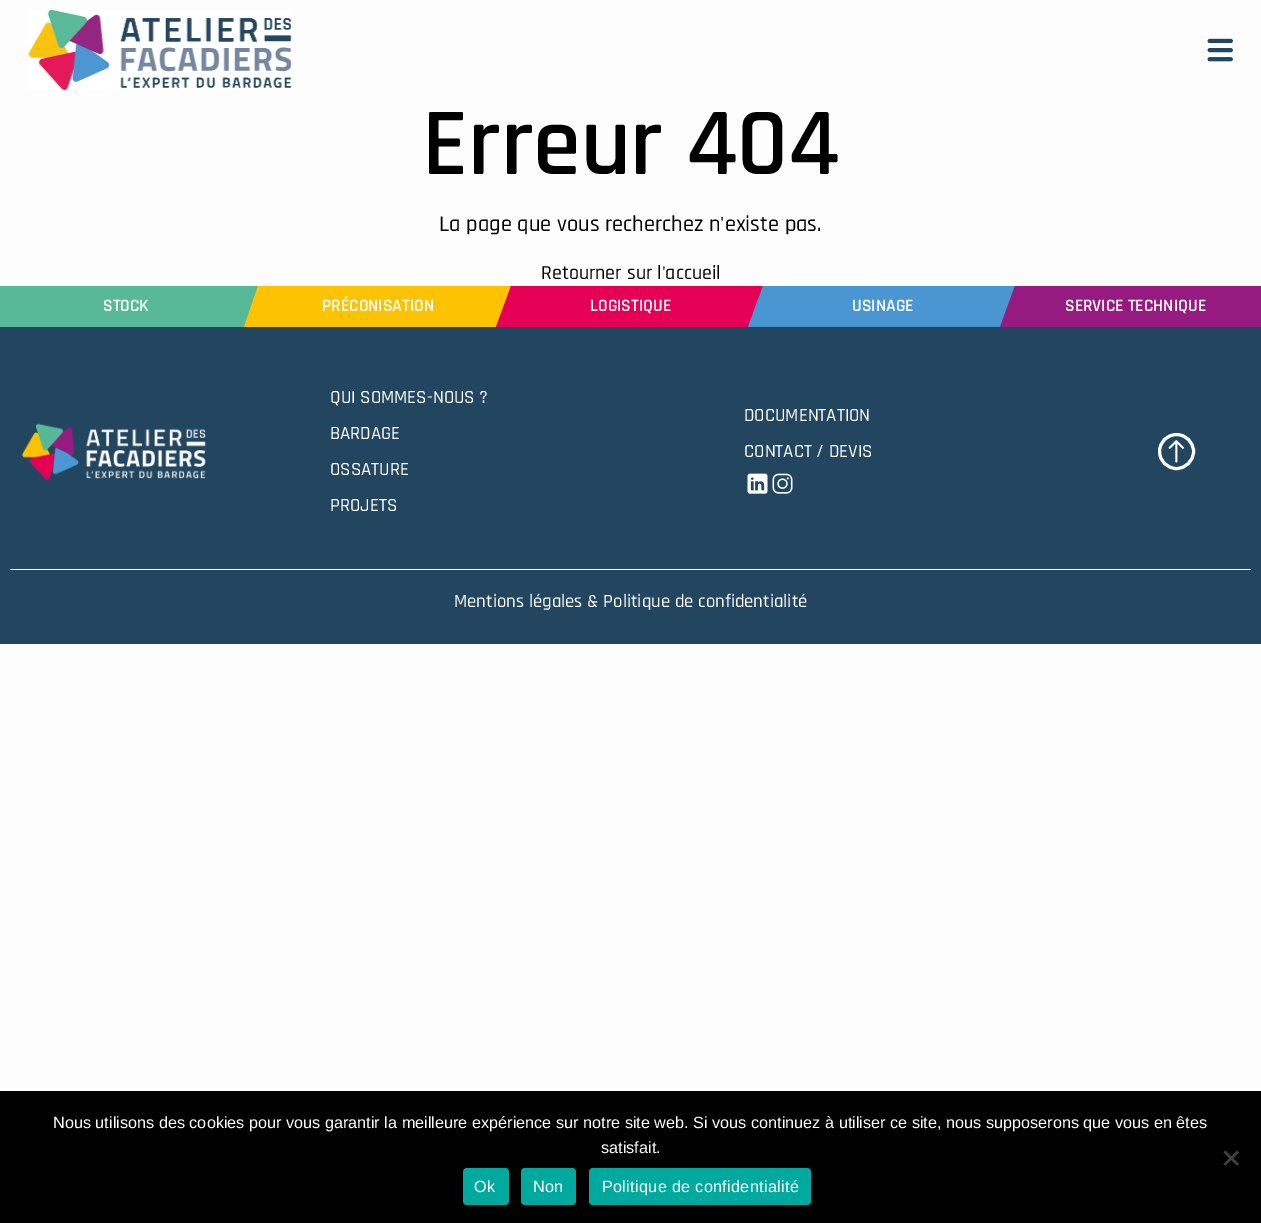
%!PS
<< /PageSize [1261 1223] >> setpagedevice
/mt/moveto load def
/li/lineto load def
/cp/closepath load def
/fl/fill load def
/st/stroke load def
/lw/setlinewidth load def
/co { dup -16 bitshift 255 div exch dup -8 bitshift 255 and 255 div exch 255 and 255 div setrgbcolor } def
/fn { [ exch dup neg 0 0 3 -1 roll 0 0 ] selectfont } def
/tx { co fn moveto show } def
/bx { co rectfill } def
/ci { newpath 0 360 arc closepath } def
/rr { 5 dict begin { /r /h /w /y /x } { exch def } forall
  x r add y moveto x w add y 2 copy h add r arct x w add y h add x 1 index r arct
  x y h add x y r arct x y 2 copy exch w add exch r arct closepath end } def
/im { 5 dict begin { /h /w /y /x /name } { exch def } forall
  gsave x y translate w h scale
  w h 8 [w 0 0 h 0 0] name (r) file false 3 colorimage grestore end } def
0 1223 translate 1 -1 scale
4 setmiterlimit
0 0 1261 1223 16#FEFDFD bx
(media/1.raw) 28 10 264 80 im
(media/2.raw) 1207 38 26 24 im
16#58B998 co
-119 286 mt 7 286 li -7 327 li -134 327 li cp fl
6 286 mt 261 286 li 246 327 li -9 327 li cp fl
16#FDC300 co
258 286 mt 513 286 li 498 327 li 244 327 li cp fl
16#E50056 co
511 286 mt 765 286 li 751 327 li 496 327 li cp fl
16#4A96D2 co
763 286 mt 1018 286 li 1003 327 li 748 327 li cp fl
16#951B81 co
1015 286 mt 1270 286 li 1255 327 li 1000 327 li cp fl
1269 286 mt 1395 286 li 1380 327 li 1254 327 li cp fl
0 327 1261 317 16#234660 bx
(media/3.raw) 21 423 185 57 im
(media/4.raw) 747 473 21 21 im
(media/5.raw) 772 473 21 21 im
16#FFFFFF co
3 lw
1176.5 451.5 17 ci st
(media/6.raw) 1168 440 16 23 im
10 569 1241 1 16#FFFFFF bx
0 1091 1261 132 16#000000 bx
16#404040 co
1237 1150.5 mt 1239 1152.5 li 1225.5 1165.5 li 1223.5 1164 li cp fl
1223.5 1152.5 mt 1225.5 1150.5 li 1239 1164 li 1237 1165.5 li cp fl
16#00A99D co
463 1168 46 37 4 rr fl
521 1168 55 37 4 rr fl
589 1168 222 37 4 rr fl
(Erreur 404) 422 174 /Rajdhani-SemiBold 96.5 16#000000 tx
(La page que vous recherchez n'existe pas.) 439 231 /Rajdhani-Medium 22.5 16#000000 tx
(Retourner sur l'accueil) 541 279 /Rajdhani-Medium 20 16#000000 tx
(STOCK) 103 311 /Rajdhani-SemiBold 17.5 16#FFFFFF tx
(PRÉCONISATION) 322 311 /Rajdhani-SemiBold 17.5 16#FFFFFF tx
(LOGISTIQUE) 590 311 /Rajdhani-SemiBold 17.5 16#FFFFFF tx
(USINAGE) 852 311 /Rajdhani-SemiBold 17.5 16#FFFFFF tx
(SERVICE TECHNIQUE) 1065 311 /Rajdhani-SemiBold 17.5 16#FFFFFF tx
(QUI SOMMES-NOUS ?) 330 403 /Rajdhani-Medium 18.75 16#FFFFFF tx
(BARDAGE) 330 439 /Rajdhani-Medium 18.75 16#FFFFFF tx
(OSSATURE) 330 475 /Rajdhani-Medium 18.75 16#FFFFFF tx
(PROJETS) 330 511 /Rajdhani-Medium 18.75 16#FFFFFF tx
(DOCUMENTATION) 744 421 /Rajdhani-Medium 18.75 16#FFFFFF tx
(CONTACT / DEVIS) 744 457 /Rajdhani-Medium 18.75 16#FFFFFF tx
(Mentions légales & Politique de confidentialité) 454 607 /Rajdhani-Medium 18.75 16#FFFFFF tx
(Nous utilisons des cookies pour vous garantir la meilleure expérience sur notre site web. Si vous continuez à utiliser ce site, nous supposerons que vous en êtes) 53 1128 /LiberationSans-Regular 16.25 16#FFFFFF tx
(satisfait.) 601 1153 /LiberationSans-Regular 16.25 16#FFFFFF tx
474 1192 mt .3 0 (Ok) ashow
533 1192 mt .3 0 (Non) ashow
602 1192 mt .3 0 (Politique de confidentialité) ashow
showpage
